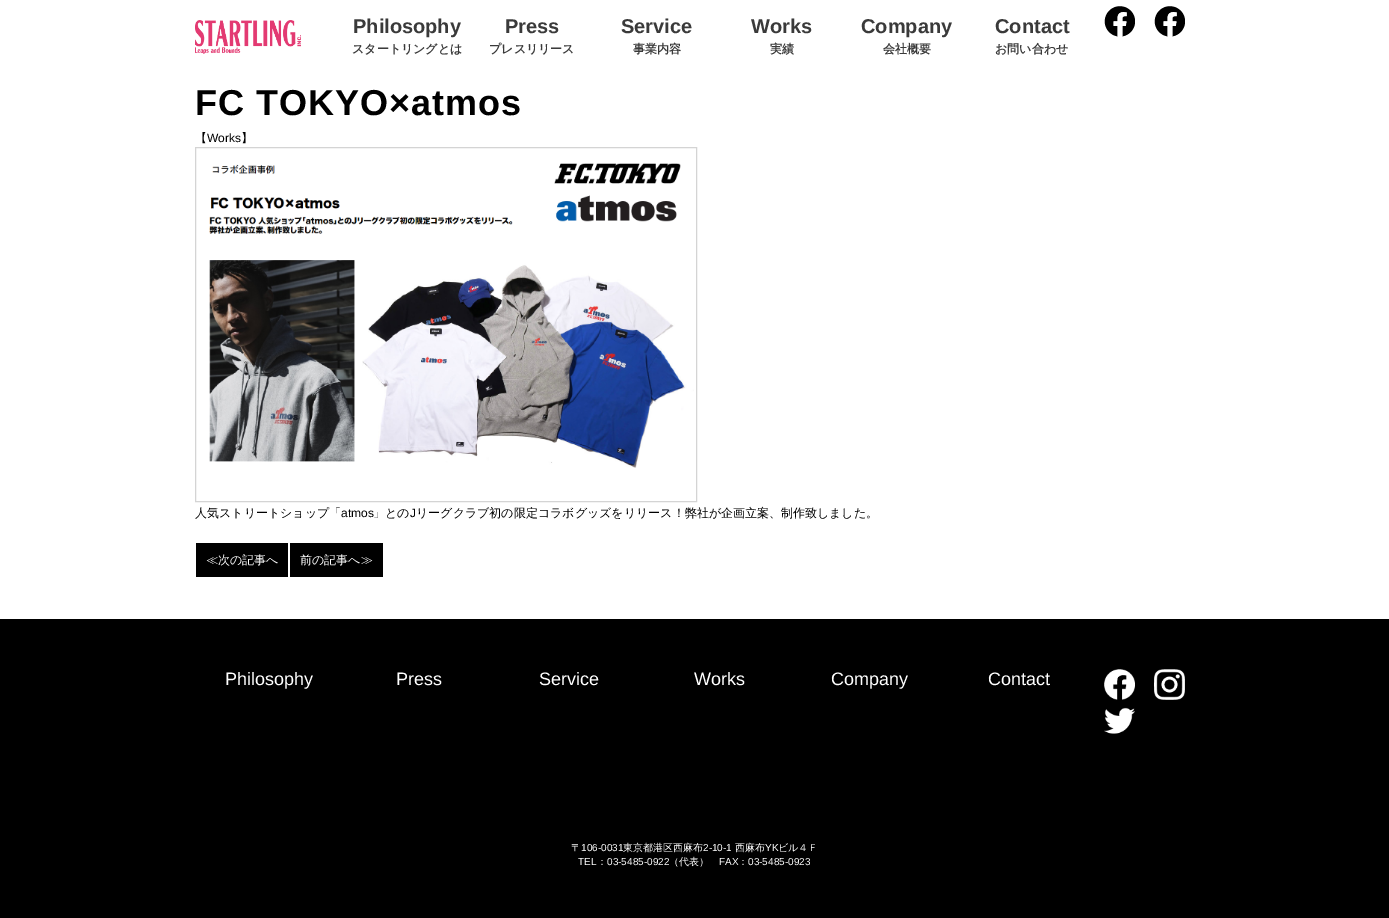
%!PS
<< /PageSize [1389 918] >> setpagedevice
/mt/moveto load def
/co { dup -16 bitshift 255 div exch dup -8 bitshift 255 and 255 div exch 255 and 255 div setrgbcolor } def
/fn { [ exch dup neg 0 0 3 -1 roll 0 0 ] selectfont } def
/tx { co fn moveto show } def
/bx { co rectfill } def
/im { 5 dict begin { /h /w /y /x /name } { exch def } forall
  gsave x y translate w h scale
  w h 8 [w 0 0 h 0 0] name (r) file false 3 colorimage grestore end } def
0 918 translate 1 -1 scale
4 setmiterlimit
0 0 1389 918 16#FFFFFF bx
(media/1.raw) 195 20 106 34 im
(media/2.raw) 1104 6 31 31 im
(media/2.raw) 1154 6 31 31 im
16#D4D4D4 co
195.5 147.5 501 354 rectstroke
(media/3.raw) 209 163 485 305 im
196 543 92 34 16#000000 bx
290 543 93 34 16#000000 bx
0 619 1389 299 16#000000 bx
(media/4.raw) 1104 669 31 31 im
(media/5.raw) 1154 669 31 31 im
(media/6.raw) 1104 707 31 27 im
(Philosophy) 353 33 /LiberationSans-Bold 20 16#3A3A3A tx
(スタートリングとは) 352 53 /WenQuanYiZenHei-Bold 12 16#3A3A3A tx
(Press) 505 33 /LiberationSans-Bold 20 16#3A3A3A tx
(プレスリリース) 489 53 /WenQuanYiZenHei-Bold 12 16#3A3A3A tx
(Service) 621 33 /LiberationSans-Bold 20 16#3A3A3A tx
(事業内容) 633 53 /WenQuanYiZenHei-Bold 12 16#3A3A3A tx
(Works) 751 33 /LiberationSans-Bold 20 16#3A3A3A tx
(実績) 770 53 /WenQuanYiZenHei-Bold 12 16#3A3A3A tx
(Company) 861 33 /LiberationSans-Bold 20 16#3A3A3A tx
(会社概要) 883 53 /WenQuanYiZenHei-Bold 12 16#3A3A3A tx
(Contact) 995 33 /LiberationSans-Bold 20 16#3A3A3A tx
(お問い合わせ) 995 53 /WenQuanYiZenHei-Bold 12 16#3A3A3A tx
/LiberationSans-Bold 36 fn
16#000000 co
195 115 mt 1 0 (FC TOKYO×atmos) ashow
(【) 195 142 /WenQuanYiZenHei-Medium 12 16#000000 tx
(Works) 207 142 /LiberationSans-Regular 12 16#000000 tx
(】) 241 142 /WenQuanYiZenHei-Medium 12 16#000000 tx
(人気ストリートショップ「) 195 517 /WenQuanYiZenHei-Medium 12 16#000000 tx
(atmos) 341 517 /LiberationSans-Regular 12 16#000000 tx
(」との) 373 517 /WenQuanYiZenHei-Medium 12 16#000000 tx
(J) 410 517 /LiberationSans-Regular 12 16#000000 tx
(リーグクラブ初の限定コラボグッズをリリース！弊社が企画立案、制作致しました。) 416 517 /WenQuanYiZenHei-Medium 12 16#000000 tx
(≪次の記事へ) 206 564 /WenQuanYiZenHei-Medium 12 16#FFFFFF tx
(前の記事へ≫) 300 564 /WenQuanYiZenHei-Medium 12 16#FFFFFF tx
(Philosophy) 225 685 /LiberationSans-Regular 18 16#FFFFFF tx
(Press) 396 685 /LiberationSans-Regular 18 16#FFFFFF tx
(Service) 539 685 /LiberationSans-Regular 18 16#FFFFFF tx
(Works) 694 685 /LiberationSans-Regular 18 16#FFFFFF tx
(Company) 831 685 /LiberationSans-Regular 18 16#FFFFFF tx
(Contact) 988 685 /LiberationSans-Regular 18 16#FFFFFF tx
(〒) 571 851 /WenQuanYiZenHei-Medium 10 16#FFFFFF tx
(106-0031) 581 851 /LiberationSans-Regular 10 16#FFFFFF tx
(東京都港区西麻布) 623 851 /WenQuanYiZenHei-Medium 10 16#FFFFFF tx
(2-10-1) 703 851 /LiberationSans-Regular 10 16#FFFFFF tx
(西麻布) 735 851 /WenQuanYiZenHei-Medium 10 16#FFFFFF tx
(YK) 765 851 /LiberationSans-Regular 10 16#FFFFFF tx
(ビル４Ｆ) 778 851 /WenQuanYiZenHei-Medium 10 16#FFFFFF tx
(TEL) 578 865 /LiberationSans-Regular 10 16#FFFFFF tx
(：) 597 865 /WenQuanYiZenHei-Medium 10 16#FFFFFF tx
(03-5485-0922) 607 865 /LiberationSans-Regular 10 16#FFFFFF tx
(（代表）) 669 865 /WenQuanYiZenHei-Medium 10 16#FFFFFF tx
(FAX) 719 865 /LiberationSans-Regular 10 16#FFFFFF tx
(：) 738 865 /WenQuanYiZenHei-Medium 10 16#FFFFFF tx
(03-5485-0923) 748 865 /LiberationSans-Regular 10 16#FFFFFF tx
showpage
